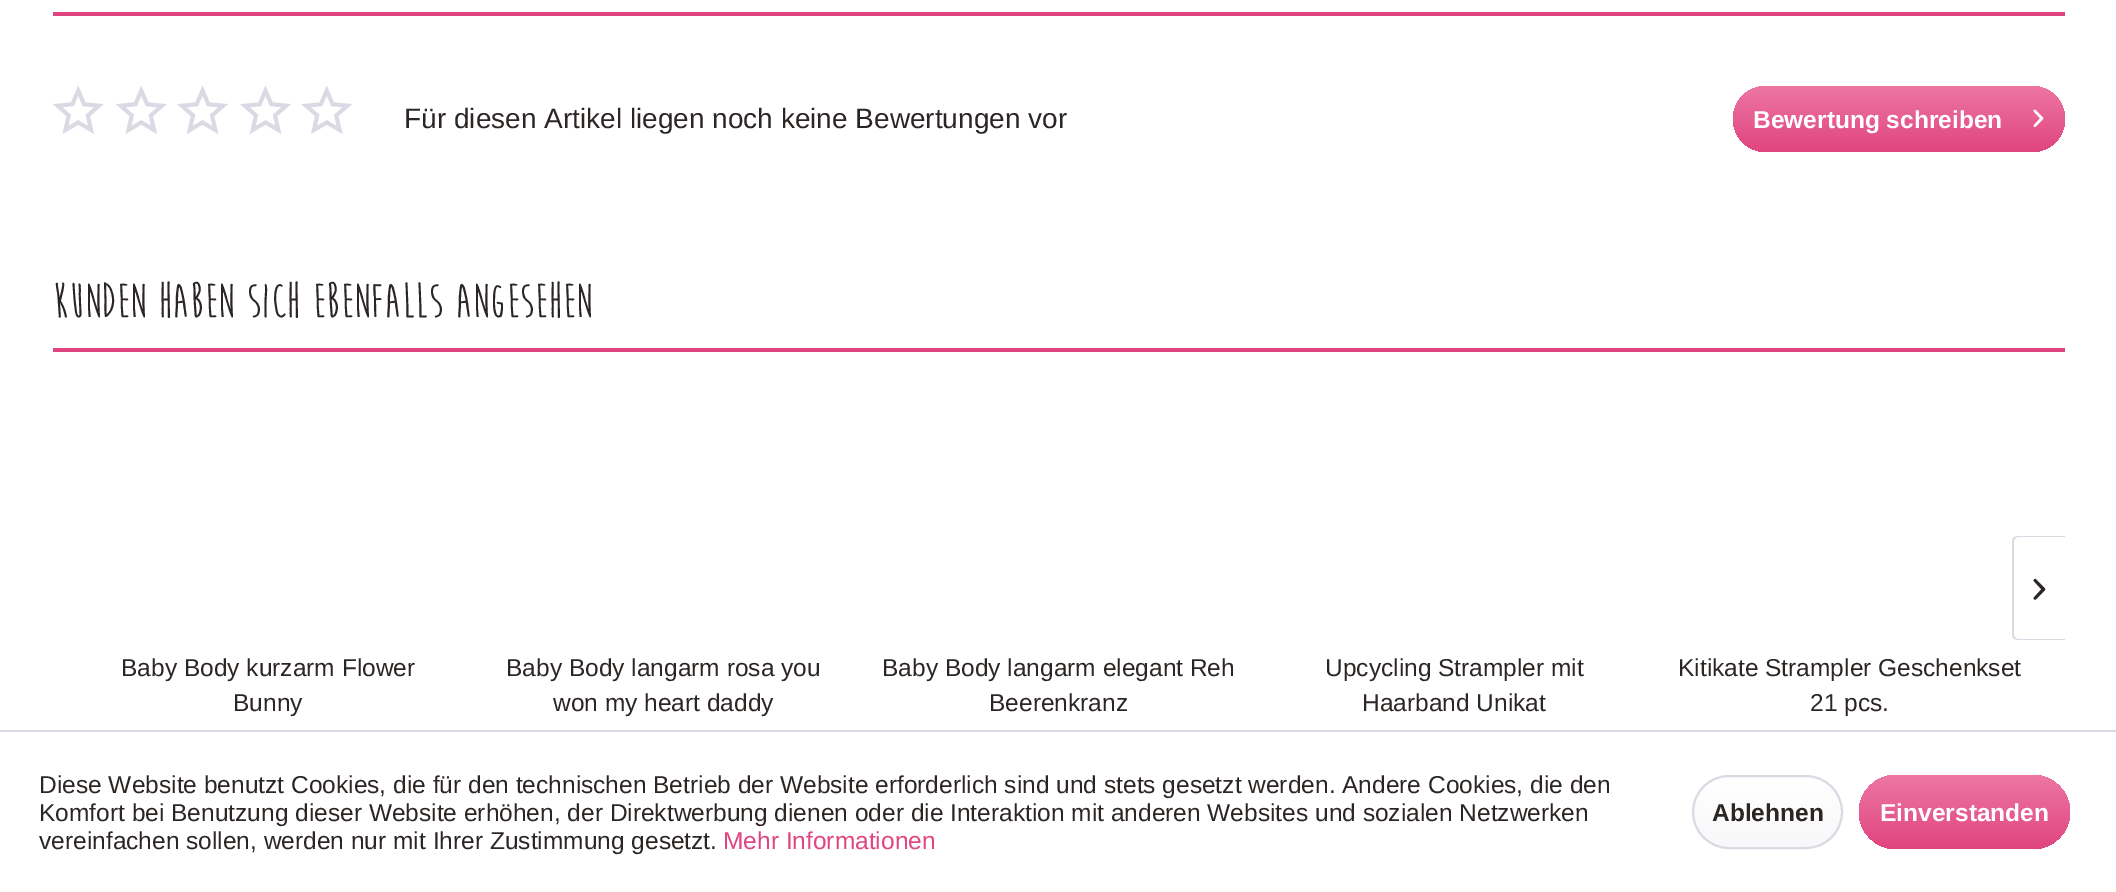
%!PS
<< /PageSize [2116 892] >> setpagedevice
/mt/moveto load def
/li/lineto load def
/ct/curveto load def
/cp/closepath load def
/st/stroke load def
/gs/gsave load def
/gr/grestore load def
/lw/setlinewidth load def
/co { dup -16 bitshift 255 div exch dup -8 bitshift 255 and 255 div exch 255 and 255 div setrgbcolor } def
/fn { [ exch dup neg 0 0 3 -1 roll 0 0 ] selectfont } def
/tx { co fn moveto show } def
/bx { co rectfill } def
/rr { 5 dict begin { /r /h /w /y /x } { exch def } forall
  x r add y moveto x w add y 2 copy h add r arct x w add y h add x 1 index r arct
  x y h add x y r arct x y 2 copy exch w add exch r arct closepath end } def
/im { 5 dict begin { /h /w /y /x /name } { exch def } forall
  gsave x y translate w h scale
  w h 8 [w 0 0 h 0 0] name (r) file false 3 colorimage grestore end } def
0 892 translate 1 -1 scale
4 setmiterlimit
0 0 2116 892 16#FFFFFF bx
53 12 2012 4 16#E04580 bx
(media/1.raw) 52 85 52 49 im
(media/1.raw) 115 85 52 49 im
(media/2.raw) 177 85 51 49 im
(media/2.raw) 240 85 51 49 im
(media/3.raw) 301 85 52 49 im
gs 1733 86 332 66 33 rr clip newpath
<< /ShadingType 2 /ColorSpace /DeviceRGB /Coords [1899 86 1899 152] /Extend [true true] /Function << /FunctionType 2 /Domain [0 1] /C0 [.929 .463 .639] /C1 [.878 .271 .502] /N 1 >> >> shfill gr
(media/4.raw) 2033 109 11 19 im
53 348 2012 4 16#E04580 bx
16#DADAE5 co
2018 536 mt 2065 536 li 2065 640 li 2018 640 li 2015 640 2012 638 2012 635 ct 2012 541 li 2012 538 2015 536 2018 536 ct cp 2018 537 mt 2065 537 li 2065 639 li 2018 639 li 2016 639 2014 637 2014 635 ct 2014 541 li 2014 539 2016 537 2018 537 ct cp eofill
(media/5.raw) 2033 578 13 22 im
0 730 2116 2 16#DADAE5 bx
gs 1694 777 147 70 35 rr clip newpath
<< /ShadingType 2 /ColorSpace /DeviceRGB /Coords [1768 777 1768 847] /Extend [true true] /Function << /FunctionType 2 /Domain [0 1] /C0 [1 1 1] /C1 [.973 .973 .98] /N 1 >> >> shfill gr
2 lw
1693 776 149 72 36 rr st
gs 1859 775 211 74 37 rr clip newpath
<< /ShadingType 2 /ColorSpace /DeviceRGB /Coords [1964 775 1964 849] /Extend [true true] /Function << /FunctionType 2 /Domain [0 1] /C0 [.929 .463 .639] /C1 [.878 .271 .502] /N 1 >> >> shfill gr
(Für diesen Artikel liegen noch keine Bewertungen vor) 404 128 /LiberationSans-Regular 28 16#2B2624 tx
(Bewertung schreiben) 1753 128 /LiberationSans-Bold 24.5 16#FFFFFF tx
(Kunden haben sich ebenfalls angesehen) 53 317 /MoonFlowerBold-Bold 49 16#2B2624 tx
(Baby Body kurzarm Flower) 121 676 /LiberationSans-Regular 24.5 16#2B2624 tx
(Bunny) 233 711 /LiberationSans-Regular 24.5 16#2B2624 tx
(Baby Body langarm rosa you) 506 676 /LiberationSans-Regular 24.5 16#2B2624 tx
(won my heart daddy) 553 711 /LiberationSans-Regular 24.5 16#2B2624 tx
(Baby Body langarm elegant Reh) 882 676 /LiberationSans-Regular 24.5 16#2B2624 tx
(Beerenkranz) 989 711 /LiberationSans-Regular 24.5 16#2B2624 tx
(Upcycling Strampler mit) 1325 676 /LiberationSans-Regular 24.5 16#2B2624 tx
(Haarband Unikat) 1362 711 /LiberationSans-Regular 24.5 16#2B2624 tx
(Kitikate Strampler Geschenkset) 1678 676 /LiberationSans-Regular 24.5 16#2B2624 tx
(21 pcs.) 1810 711 /LiberationSans-Regular 24.5 16#2B2624 tx
(Diese Website benutzt Cookies, die für den technischen Betrieb der Website erforderlich sind und stets gesetzt werden. Andere Cookies, die den) 39 793 /LiberationSans-Regular 24.5 16#2B2624 tx
(Komfort bei Benutzung dieser Website erhöhen, der Direktwerbung dienen oder die Interaktion mit anderen Websites und sozialen Netzwerken) 39 821 /LiberationSans-Regular 24.5 16#2B2624 tx
(vereinfachen sollen, werden nur mit Ihrer Zustimmung gesetzt.) 39 849 /LiberationSans-Regular 24.5 16#2B2624 tx
(Mehr Informationen) 723 849 /LiberationSans-Regular 24.5 16#E04580 tx
(Ablehnen) 1712 821 /LiberationSans-Bold 24.5 16#2B2624 tx
(Einverstanden) 1880 821 /LiberationSans-Bold 24.5 16#FFFFFF tx
showpage
